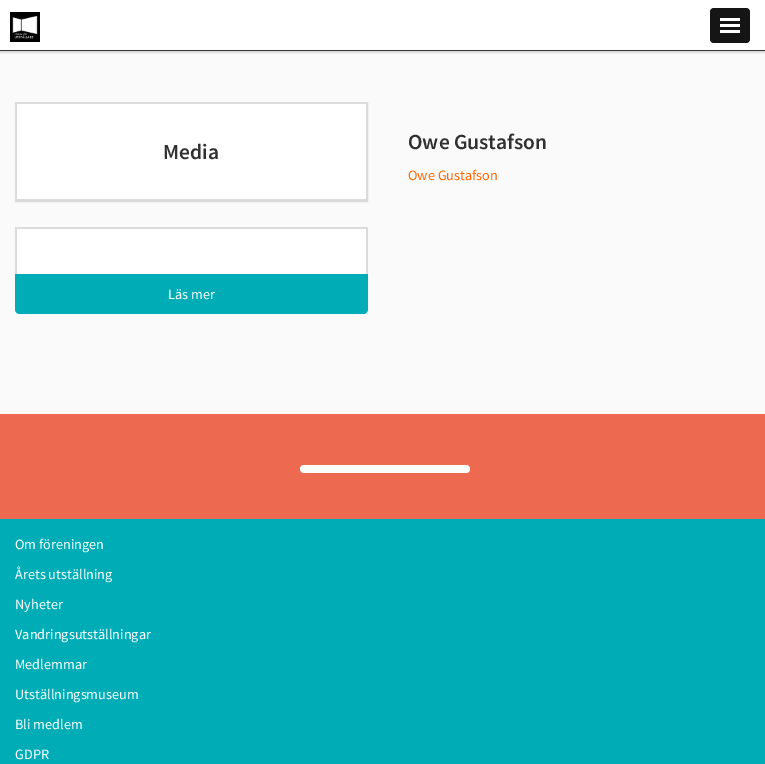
%!PS
<< /PageSize [765 764] /PageUsesTransparency true >> setpagedevice
/mt/moveto load def
/li/lineto load def
/ct/curveto load def
/cp/closepath load def
/fl/fill load def
/lw/setlinewidth load def
/co { dup -16 bitshift 255 div exch dup -8 bitshift 255 and 255 div exch 255 and 255 div setrgbcolor } def
/fn { [ exch dup neg 0 0 3 -1 roll 0 0 ] selectfont } def
/tx { co fn moveto show } def
/bx { co rectfill } def
/al { dup .setfillconstantalpha .setstrokeconstantalpha } def
/rr { 5 dict begin { /r /h /w /y /x } { exch def } forall
  x r add y moveto x w add y 2 copy h add r arct x w add y h add x 1 index r arct
  x y h add x y r arct x y 2 copy exch w add exch r arct closepath end } def
/sh { 12 dict begin { /a /b /q /h /w /y /x } { exch def } forall gsave /was 0 def
  9 -2 -9 { dup b mul 4 div /e exch def 1 sub .425 mul 2.718 exch exp 1 add a .99 .min exch div /now exch def
    1 1 now sub 1 was sub div sub al /was now def
    w h .min e 2 mul add 0 gt { x e sub y e sub w e 2 mul add h e 2 mul add
      q e add b .6 mul add w h .min 2 div e add .min 0 .max rr fill } if } for grestore end } def
/im { 5 dict begin { /h /w /y /x /name } { exch def } forall
  gsave x y translate w h scale
  w h 8 [w 0 0 h 0 0] name (r) file false 3 colorimage grestore end } def
0 .pushpdf14devicefilter
0 764 translate 1 -1 scale
4 setmiterlimit
0 0 765 764 16#FAFAFA bx
16#DBDBDB co
0 1 765 52 0 .5 1 sh
0 0 765 50 16#FFFFFF bx
0 51 765 1 16#DBDBDB bx
(media/1.raw) 10 12 30 30 im
16#151515 co
710 8 40 35 4 rr fl
720 18 20 3 16#FFFFFF bx
720 24 20 3 16#FFFFFF bx
720 30 20 3 16#FFFFFF bx
0 50 765 1 16#333333 bx
16#DBDBDB co
2 lw
16 103 351 98 rectstroke
17 104 349 95 16#FFFFFF bx
17 199 349 1 16#DBDBDB bx
17 229 349 45 16#FFFFFF bx
15 227 353 2 16#DBDBDB bx
366 227 2 47 16#DBDBDB bx
15 227 2 47 16#DBDBDB bx
16#00ADB7 co
15 274 mt 368 274 li 368 309 li 368 312 366 314 363 314 ct 20 314 li 17 314 15 312 15 309 ct cp fl
0 414 765 105 16#ED694F bx
16#FFFFFF co
300 465 170 8 4 rr fl
0 519 765 245 16#00ADB7 bx
(Media) 163 159 /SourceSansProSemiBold-SemiBold 21.5 16#303030 tx
(Läs mer) 168 299 /SourceSansPro-Regular 14.25 16#FFFFFF tx
(Owe Gustafson) 408 149 /SourceSansProSemiBold-SemiBold 21.5 16#303030 tx
(Owe Gustafson) 408 180 /SourceSansPro-Regular 14.25 16#FF6500 tx
(Om föreningen) 15 549 /SourceSansPro-Regular 14.25 16#FFFFFF tx
(Årets utställning) 15 579 /SourceSansPro-Regular 14.25 16#FFFFFF tx
(Nyheter) 15 609 /SourceSansPro-Regular 14.25 16#FFFFFF tx
(Vandringsutställningar) 15 639 /SourceSansPro-Regular 14.25 16#FFFFFF tx
(Medlemmar) 15 669 /SourceSansPro-Regular 14.25 16#FFFFFF tx
(Utställningsmuseum) 15 699 /SourceSansPro-Regular 14.25 16#FFFFFF tx
(Bli medlem) 15 729 /SourceSansPro-Regular 14.25 16#FFFFFF tx
(GDPR) 15 759 /SourceSansPro-Regular 14.25 16#FFFFFF tx
.poppdf14devicefilter showpage
